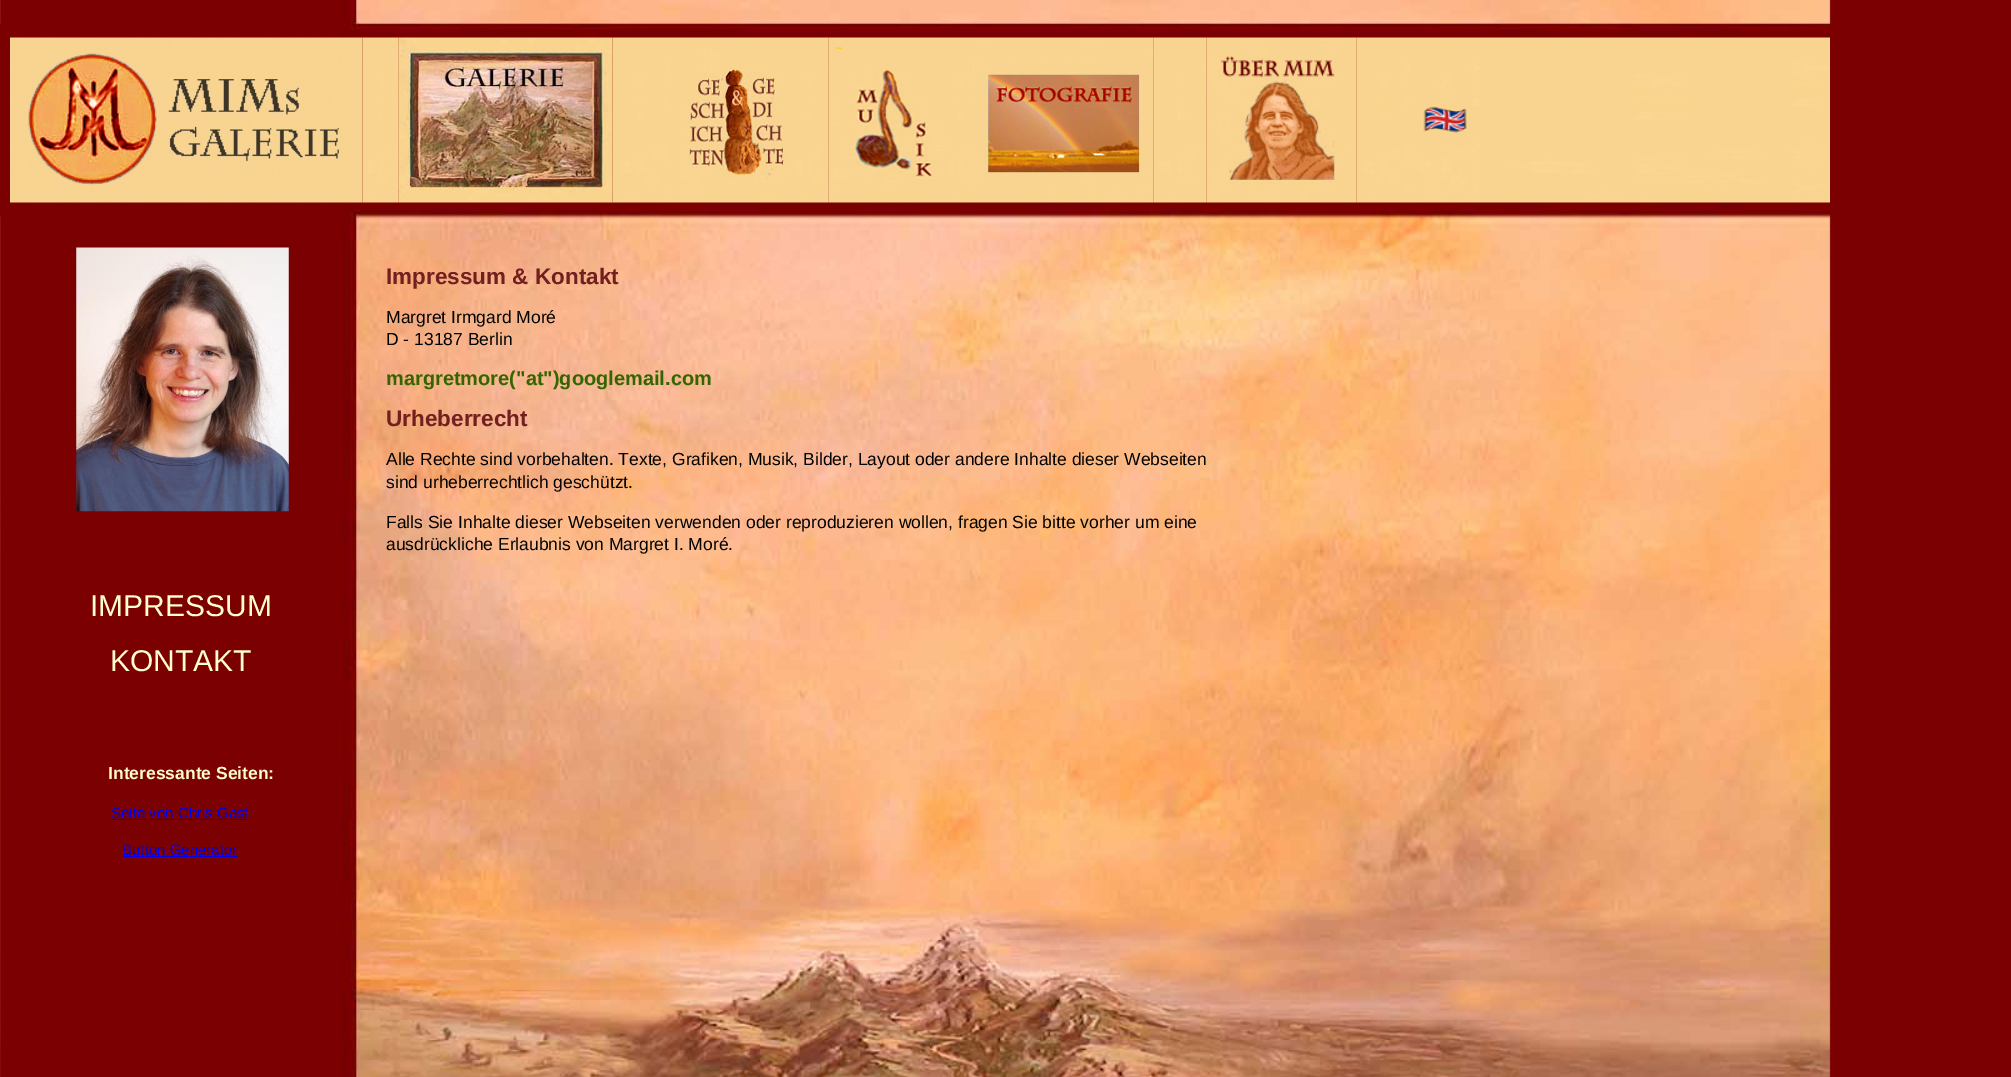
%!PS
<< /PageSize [2011 1077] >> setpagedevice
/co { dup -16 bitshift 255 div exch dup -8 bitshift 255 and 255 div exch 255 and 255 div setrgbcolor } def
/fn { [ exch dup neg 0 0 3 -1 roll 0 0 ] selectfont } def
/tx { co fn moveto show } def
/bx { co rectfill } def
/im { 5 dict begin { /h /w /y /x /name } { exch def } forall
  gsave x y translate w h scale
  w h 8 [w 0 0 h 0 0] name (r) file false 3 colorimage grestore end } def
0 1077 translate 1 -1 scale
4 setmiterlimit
0 0 2011 1077 16#FFFFFF bx
(media/1.raw) 0 0 2011 1077 im
(media/3.raw) 362 37 37 166 im
(media/2.raw) 10 37 353 166 im
(media/5.raw) 612 37 58 166 im
(media/4.raw) 398 37 215 166 im
(media/6.raw) 670 37 120 166 im
(media/7.raw) 790 37 39 166 im
(media/8.raw) 828 37 117 166 im
(media/9.raw) 945 37 30 166 im
(media/11.raw) 1153 37 54 166 im
(media/10.raw) 975 37 179 166 im
(media/13.raw) 1356 37 54 166 im
(media/12.raw) 1206 37 151 166 im
(media/14.raw) 1410 37 70 166 im
(media/15.raw) 1480 37 350 166 im
(media/16.raw) 76 247 213 265 im
111 819 138 1 16#0000EE bx
123 856 115 1 16#0000EE bx
(Impressum & Kontakt) 386 284 /LiberationSans-Bold 22.5 16#721F1F tx
(Margret Irmgard Moré) 386 323 /LiberationSans-Regular 17.5 16#000000 tx
(D - 13187 Berlin) 386 345 /LiberationSans-Regular 17.5 16#000000 tx
(margretmore\("at"\)googlemail.com) 386 385 /LiberationSans-Bold 20 16#336600 tx
(Urheberrecht) 386 426 /LiberationSans-Bold 22.5 16#721F1F tx
(Alle Rechte sind vorbehalten. Texte, Grafiken, Musik, Bilder, Layout oder andere Inhalte dieser Webseiten) 386 465 /LiberationSans-Regular 17.5 16#000000 tx
(sind urheberrechtlich geschützt.) 386 488 /LiberationSans-Regular 17.5 16#000000 tx
(Falls Sie Inhalte dieser Webseiten verwenden oder reproduzieren wollen, fragen Sie bitte vorher um eine) 386 528 /LiberationSans-Regular 17.5 16#000000 tx
(ausdrückliche Erlaubnis von Margret I. Moré.) 386 550 /LiberationSans-Regular 17.5 16#000000 tx
(IMPRESSUM) 90 616 /LiberationSans-Regular 30 16#FFFFCC tx
(KONTAKT) 110 671 /LiberationSans-Regular 30 16#FFFFCC tx
(Interessante Seiten:) 108 779 /LiberationSans-Bold 17.5 16#FFFFCC tx
(Seite von Chris Gast) 111 818 /LiberationSans-Regular 15 16#0000EE tx
(Button Generator) 122 855 /LiberationSans-Regular 15 16#0000EE tx
showpage
